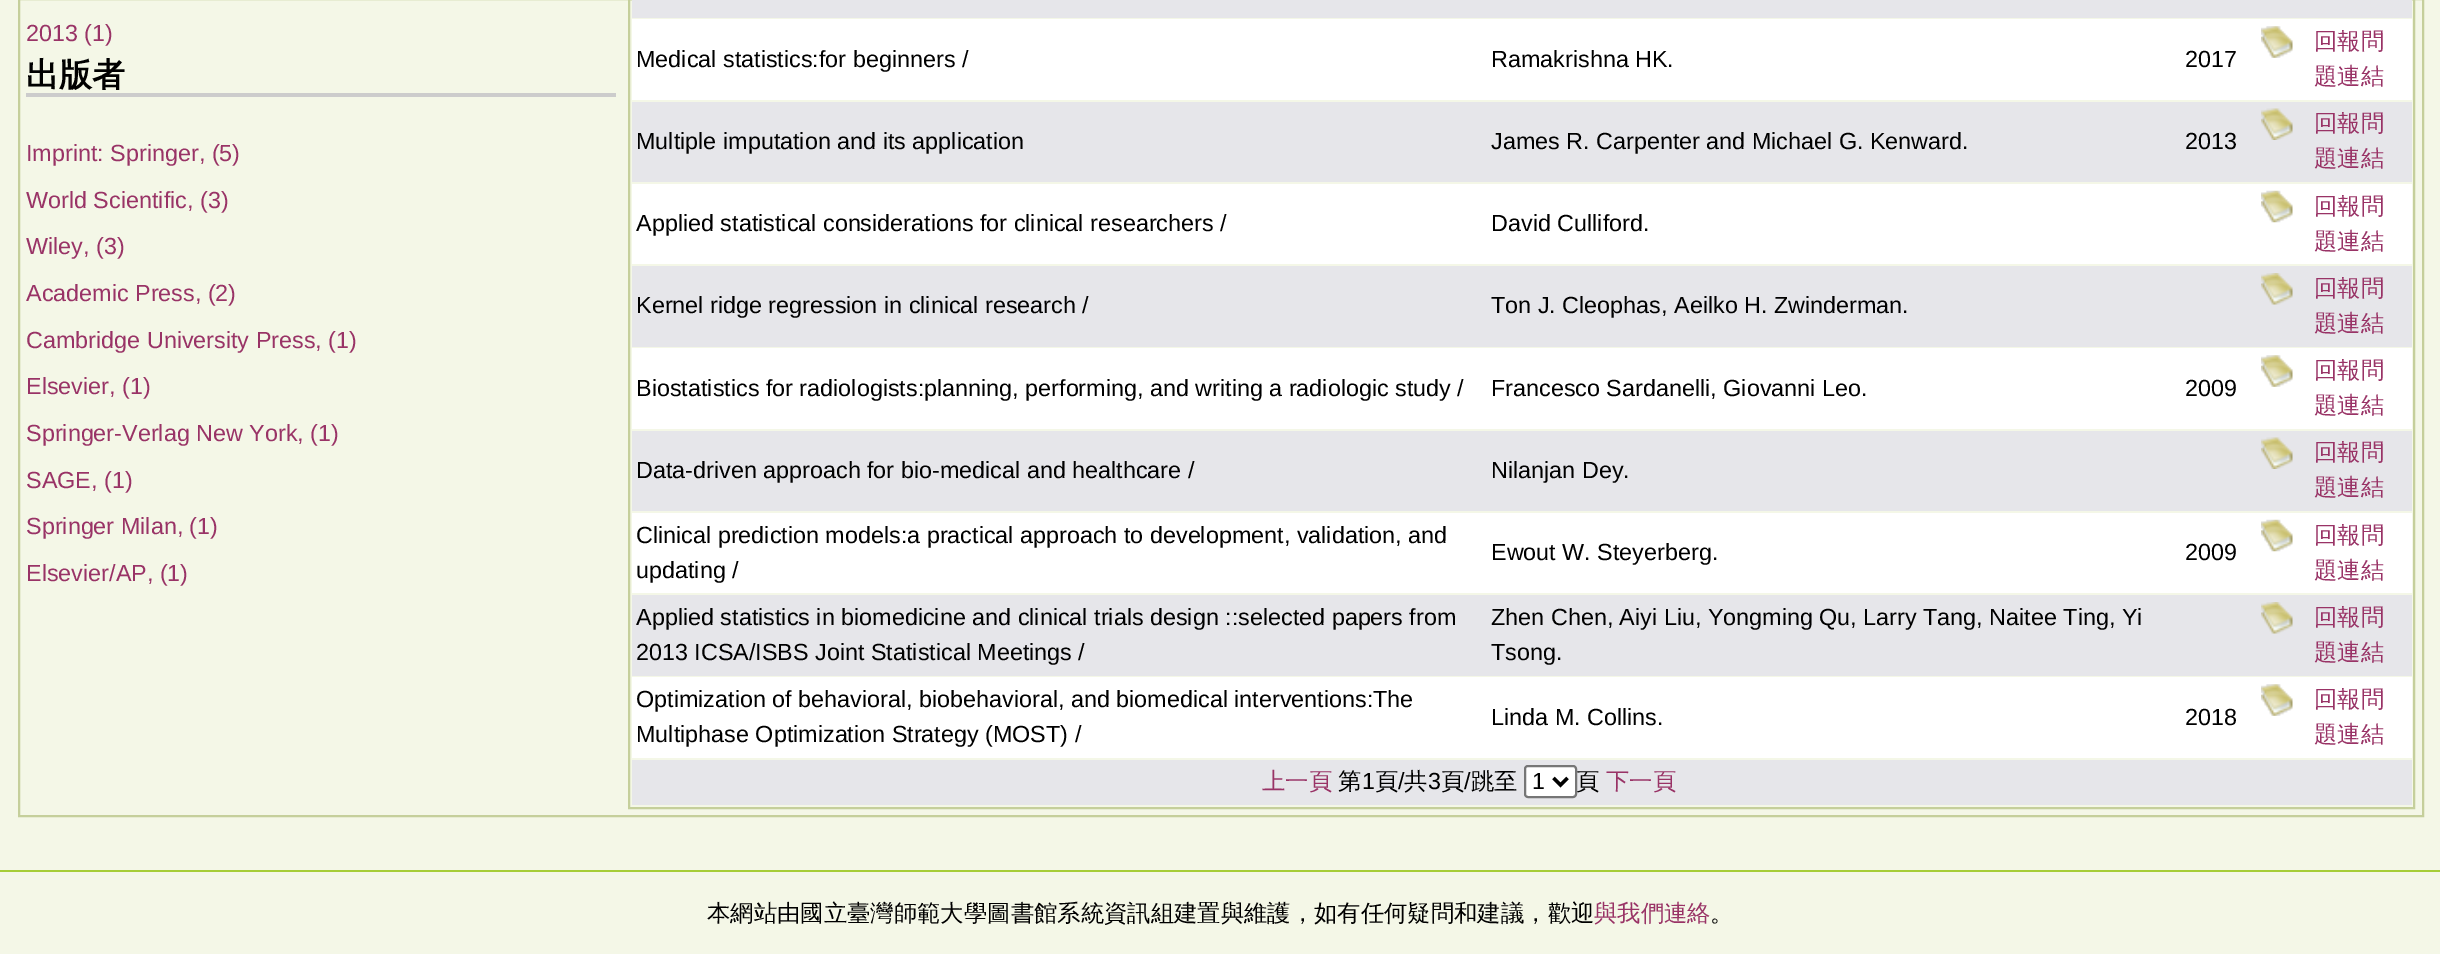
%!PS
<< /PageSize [2440 954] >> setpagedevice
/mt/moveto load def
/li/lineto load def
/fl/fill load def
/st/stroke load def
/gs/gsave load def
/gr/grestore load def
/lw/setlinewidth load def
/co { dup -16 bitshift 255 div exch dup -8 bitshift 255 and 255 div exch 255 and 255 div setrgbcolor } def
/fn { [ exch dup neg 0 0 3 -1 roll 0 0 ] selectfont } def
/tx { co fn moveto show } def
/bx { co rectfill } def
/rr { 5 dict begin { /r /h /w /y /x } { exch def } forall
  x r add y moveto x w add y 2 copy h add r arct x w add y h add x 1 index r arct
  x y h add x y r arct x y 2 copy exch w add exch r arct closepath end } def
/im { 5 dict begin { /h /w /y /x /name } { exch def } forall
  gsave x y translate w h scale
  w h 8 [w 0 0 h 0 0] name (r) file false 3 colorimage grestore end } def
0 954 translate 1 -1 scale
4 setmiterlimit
0 0 2440 954 16#F4F7E7 bx
16#C5CF9B co
2 lw
19 -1 2404 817 rectstroke
26 93 590 4 16#CCCCCC bx
16#C5CF9B co
629 -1 1785 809 rectstroke
632 0 1780 18 16#E6E6EA bx
632 19 1780 81 16#FFFFFF bx
(media/1.raw) 2261 26 32 32 im
632 102 1780 80 16#E6E6EA bx
(media/2.raw) 2261 108 32 32 im
632 184 1780 80 16#FFFFFF bx
(media/3.raw) 2261 190 32 33 im
632 266 1780 81 16#E6E6EA bx
(media/4.raw) 2261 273 32 32 im
632 348 1780 81 16#FFFFFF bx
(media/1.raw) 2261 355 32 32 im
632 431 1780 80 16#E6E6EA bx
(media/2.raw) 2261 437 32 32 im
632 513 1780 80 16#FFFFFF bx
(media/3.raw) 2261 519 32 33 im
632 595 1780 81 16#E6E6EA bx
(media/4.raw) 2261 602 32 32 im
632 677 1780 81 16#FFFFFF bx
(media/1.raw) 2261 684 32 32 im
632 760 1780 45 16#E6E6EA bx
16#FFFFFF co
1525 766 51 31 3 rr gs fl gr
16#767676 co
st
16#000000 co
3.5 lw
1553.5 778 mt 1560.5 785 li 1567.5 778 li st
0 870 2440 2 16#A6CD37 bx
(2013 \(1\)) 26 41 /LiberationSans-Regular 23.35 16#993366 tx
(出版者) 26 86 /WenQuanYiZenHei-Bold 33 16#000000 tx
(Imprint: Springer, \(5\)) 26 161 /LiberationSans-Regular 23.35 16#993366 tx
(World Scientific, \(3\)) 26 208 /LiberationSans-Regular 23.35 16#993366 tx
(Wiley, \(3\)) 26 254 /LiberationSans-Regular 23.35 16#993366 tx
(Academic Press, \(2\)) 26 301 /LiberationSans-Regular 23.35 16#993366 tx
(Cambridge University Press, \(1\)) 26 348 /LiberationSans-Regular 23.35 16#993366 tx
(Elsevier, \(1\)) 26 394 /LiberationSans-Regular 23.35 16#993366 tx
(Springer-Verlag New York, \(1\)) 26 441 /LiberationSans-Regular 23.35 16#993366 tx
(SAGE, \(1\)) 26 488 /LiberationSans-Regular 23.35 16#993366 tx
(Springer Milan, \(1\)) 26 534 /LiberationSans-Regular 23.35 16#993366 tx
(Elsevier/AP, \(1\)) 26 581 /LiberationSans-Regular 23.35 16#993366 tx
(Medical statistics:for beginners /) 636 67 /LiberationSans-Regular 23.35 16#000000 tx
(Ramakrishna HK.) 1491 67 /LiberationSans-Regular 23.35 16#000000 tx
(2017) 2185 67 /LiberationSans-Regular 23.35 16#000000 tx
(回報問) 2314 49 /WenQuanYiZenHei-Medium 23.35 16#993366 tx
(題連結) 2314 84 /WenQuanYiZenHei-Medium 23.35 16#993366 tx
(Multiple imputation and its application) 636 149 /LiberationSans-Regular 23.35 16#000000 tx
(James R. Carpenter and Michael G. Kenward.) 1491 149 /LiberationSans-Regular 23.35 16#000000 tx
(2013) 2185 149 /LiberationSans-Regular 23.35 16#000000 tx
(回報問) 2314 131 /WenQuanYiZenHei-Medium 23.35 16#993366 tx
(題連結) 2314 166 /WenQuanYiZenHei-Medium 23.35 16#993366 tx
(Applied statistical considerations for clinical researchers /) 636 231 /LiberationSans-Regular 23.35 16#000000 tx
(David Culliford.) 1491 231 /LiberationSans-Regular 23.35 16#000000 tx
(回報問) 2314 214 /WenQuanYiZenHei-Medium 23.35 16#993366 tx
(題連結) 2314 249 /WenQuanYiZenHei-Medium 23.35 16#993366 tx
(Kernel ridge regression in clinical research /) 636 313 /LiberationSans-Regular 23.35 16#000000 tx
(Ton J. Cleophas, Aeilko H. Zwinderman.) 1491 313 /LiberationSans-Regular 23.35 16#000000 tx
(回報問) 2314 296 /WenQuanYiZenHei-Medium 23.35 16#993366 tx
(題連結) 2314 331 /WenQuanYiZenHei-Medium 23.35 16#993366 tx
(Biostatistics for radiologists:planning, performing, and writing a radiologic study /) 636 396 /LiberationSans-Regular 23.35 16#000000 tx
(Francesco Sardanelli, Giovanni Leo.) 1491 396 /LiberationSans-Regular 23.35 16#000000 tx
(2009) 2185 396 /LiberationSans-Regular 23.35 16#000000 tx
(回報問) 2314 378 /WenQuanYiZenHei-Medium 23.35 16#993366 tx
(題連結) 2314 413 /WenQuanYiZenHei-Medium 23.35 16#993366 tx
(Data-driven approach for bio-medical and healthcare /) 636 478 /LiberationSans-Regular 23.35 16#000000 tx
(Nilanjan Dey.) 1491 478 /LiberationSans-Regular 23.35 16#000000 tx
(回報問) 2314 460 /WenQuanYiZenHei-Medium 23.35 16#993366 tx
(題連結) 2314 495 /WenQuanYiZenHei-Medium 23.35 16#993366 tx
(Clinical prediction models:a practical approach to development, validation, and) 636 543 /LiberationSans-Regular 23.35 16#000000 tx
(updating /) 636 578 /LiberationSans-Regular 23.35 16#000000 tx
(Ewout W. Steyerberg.) 1491 560 /LiberationSans-Regular 23.35 16#000000 tx
(2009) 2185 560 /LiberationSans-Regular 23.35 16#000000 tx
(回報問) 2314 543 /WenQuanYiZenHei-Medium 23.35 16#993366 tx
(題連結) 2314 578 /WenQuanYiZenHei-Medium 23.35 16#993366 tx
(Applied statistics in biomedicine and clinical trials design ::selected papers from) 636 625 /LiberationSans-Regular 23.35 16#000000 tx
(2013 ICSA/ISBS Joint Statistical Meetings /) 636 660 /LiberationSans-Regular 23.35 16#000000 tx
(Zhen Chen, Aiyi Liu, Yongming Qu, Larry Tang, Naitee Ting, Yi) 1491 625 /LiberationSans-Regular 23.35 16#000000 tx
(Tsong.) 1491 660 /LiberationSans-Regular 23.35 16#000000 tx
(回報問) 2314 625 /WenQuanYiZenHei-Medium 23.35 16#993366 tx
(題連結) 2314 660 /WenQuanYiZenHei-Medium 23.35 16#993366 tx
(Optimization of behavioral, biobehavioral, and biomedical interventions:The) 636 707 /LiberationSans-Regular 23.35 16#000000 tx
(Multiphase Optimization Strategy \(MOST\) /) 636 742 /LiberationSans-Regular 23.35 16#000000 tx
(Linda M. Collins.) 1491 725 /LiberationSans-Regular 23.35 16#000000 tx
(2018) 2185 725 /LiberationSans-Regular 23.35 16#000000 tx
(回報問) 2314 707 /WenQuanYiZenHei-Medium 23.35 16#993366 tx
(題連結) 2314 742 /WenQuanYiZenHei-Medium 23.35 16#993366 tx
(上一頁) 1262 789 /WenQuanYiZenHei-Medium 23.35 16#993366 tx
(第) 1338 789 /WenQuanYiZenHei-Medium 23.35 16#000000 tx
(1) 1362 789 /LiberationSans-Regular 23.35 16#000000 tx
(頁) 1375 789 /WenQuanYiZenHei-Medium 23.35 16#000000 tx
(/) 1398 789 /LiberationSans-Regular 23.35 16#000000 tx
(共) 1404 789 /WenQuanYiZenHei-Medium 23.35 16#000000 tx
(3) 1428 789 /LiberationSans-Regular 23.35 16#000000 tx
(頁) 1441 789 /WenQuanYiZenHei-Medium 23.35 16#000000 tx
(/) 1464 789 /LiberationSans-Regular 23.35 16#000000 tx
(跳至) 1471 789 /WenQuanYiZenHei-Medium 23.35 16#000000 tx
(1) 1532 789 /LiberationSans-Regular 23.35 16#000000 tx
(頁) 1576 789 /WenQuanYiZenHei-Medium 23.35 16#000000 tx
(下一頁) 1606 789 /WenQuanYiZenHei-Medium 23.35 16#993366 tx
(本網站由國立臺灣師範大學圖書館系統資訊組建置與維護，如有任何疑問和建議，歡迎) 707 921 /WenQuanYiZenHei-Medium 23.35 16#000000 tx
(與我們連絡) 1594 921 /WenQuanYiZenHei-Medium 23.35 16#993366 tx
(。) 1710 921 /WenQuanYiZenHei-Medium 23.35 16#000000 tx
showpage
